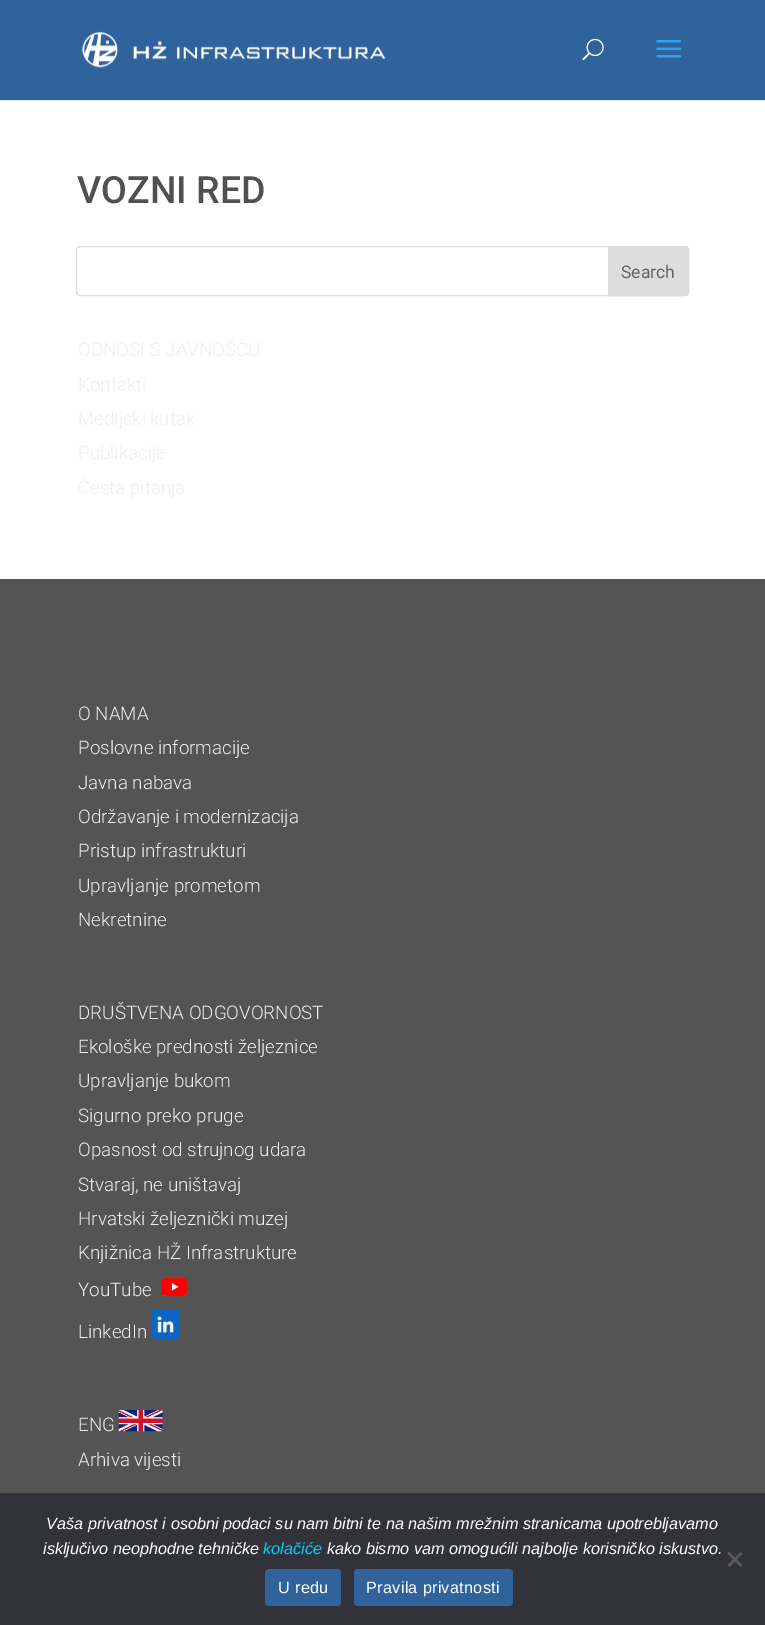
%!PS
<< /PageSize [765 1625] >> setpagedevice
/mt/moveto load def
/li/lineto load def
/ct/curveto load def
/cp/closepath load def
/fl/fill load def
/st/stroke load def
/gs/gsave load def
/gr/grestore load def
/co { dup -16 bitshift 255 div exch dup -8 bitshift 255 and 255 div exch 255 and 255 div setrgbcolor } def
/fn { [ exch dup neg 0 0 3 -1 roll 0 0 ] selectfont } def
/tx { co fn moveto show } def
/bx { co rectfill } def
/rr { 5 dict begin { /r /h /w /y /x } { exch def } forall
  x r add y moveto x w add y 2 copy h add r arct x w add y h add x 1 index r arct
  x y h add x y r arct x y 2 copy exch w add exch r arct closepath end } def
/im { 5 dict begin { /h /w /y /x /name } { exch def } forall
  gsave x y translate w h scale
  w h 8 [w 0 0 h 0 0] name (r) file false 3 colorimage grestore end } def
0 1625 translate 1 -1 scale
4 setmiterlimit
0 0 765 1625 16#FFFFFF bx
0 100 765 1 16#E6E6E6 bx
0 0 765 100 16#30639B bx
(media/1.raw) 82 31 304 37 im
(media/2.raw) 582 38 22 23 im
(media/3.raw) 656 40 26 18 im
16#DDDDDD co
76.5 246.5 612 49 3.5 rr st
608.5 246.5 mt 685 246.5 li 687 246.5 688.5 248 688.5 250 ct 688.5 292 li 688.5 294 687 295.5 685 295.5 ct 608.5 295.5 li cp gs fl gr
st
0 579 765 914 16#545454 bx
(media/4.raw) 161 1277 27 20 im
(media/5.raw) 151 1310 29 29 im
(media/6.raw) 118 1410 45 22 im
0 1493 765 132 16#32323A bx
16#59595D co
740.5 1552 mt 742.5 1553.5 li 729.5 1567 li 727.5 1565 li cp fl
727.5 1553.5 mt 729.5 1552 li 742.5 1565 li 740.5 1567 li cp fl
16#30639B co
265 1569 76 37 4 rr fl
354 1569 159 37 4 rr fl
(VOZNI RED) 77 203 /Roboto-Medium 37.5 16#505050 tx
(Search) 621 278 /Roboto-Regular 17.5 16#666666 tx
(ODNOSI S JAVNOŠĆU) 78 356 /Roboto-Light 18.75 16#EEEEEE tx
(Kontakti) 78 391 /Roboto-Light 18.75 16#EEEEEE tx
(Medijski kutak) 78 425 /Roboto-Light 18.75 16#EEEEEE tx
(Publikacije) 78 459 /Roboto-Light 18.75 16#EEEEEE tx
(Česta pitanja) 78 494 /Roboto-Light 18.75 16#EEEEEE tx
(O NAMA) 78 720 /Roboto-Light 18.75 16#EEEEEE tx
(Poslovne informacije) 78 754 /Roboto-Light 18.75 16#EEEEEE tx
(Javna nabava) 78 789 /Roboto-Light 18.75 16#EEEEEE tx
(Održavanje i modernizacija) 78 823 /Roboto-Light 18.75 16#EEEEEE tx
(Pristup infrastrukturi) 78 857 /Roboto-Light 18.75 16#EEEEEE tx
(Upravljanje prometom) 78 892 /Roboto-Light 18.75 16#EEEEEE tx
(Nekretnine) 78 926 /Roboto-Light 18.75 16#EEEEEE tx
(DRUŠTVENA ODGOVORNOST) 78 1019 /Roboto-Light 18.75 16#EEEEEE tx
(Ekološke prednosti željeznice) 78 1053 /Roboto-Light 18.75 16#EEEEEE tx
(Upravljanje bukom) 78 1087 /Roboto-Light 18.75 16#EEEEEE tx
(Sigurno preko pruge) 78 1122 /Roboto-Light 18.75 16#EEEEEE tx
(Opasnost od strujnog udara) 78 1156 /Roboto-Light 18.75 16#EEEEEE tx
(Stvaraj, ne uništavaj) 78 1191 /Roboto-Light 18.75 16#EEEEEE tx
(Hrvatski željeznički muzej) 78 1225 /Roboto-Light 18.75 16#EEEEEE tx
(Knjižnica HŽ Infrastrukture) 78 1259 /Roboto-Light 18.75 16#EEEEEE tx
(YouTube) 78 1296 /Roboto-Light 18.75 16#EEEEEE tx
(LinkedIn) 78 1338 /Roboto-Light 18.75 16#EEEEEE tx
(ENG) 78 1431 /Roboto-Light 18.75 16#EEEEEE tx
(Arhiva vijesti) 78 1466 /Roboto-Light 18.75 16#EEEEEE tx
(Vaša privatnost i osobni podaci su nam bitni te na našim mrežnim stranicama upotrebljavamo) 46 1529 /LiberationSans-Italic 16.25 16#FFFFFF tx
(isključivo neophodne tehničke) 43 1554 /LiberationSans-Italic 16.25 16#FFFFFF tx
(kolačiće) 263 1554 /LiberationSans-Italic 16.25 16#00CCFF tx
(kako bismo vam omogućili najbolje korisničko iskustvo.) 327 1554 /LiberationSans-Italic 16.25 16#FFFFFF tx
/LiberationSans-Regular 16.25 fn
278 1593 mt .3 0 (U redu) ashow
366 1593 mt .3 0 (Pravila privatnosti) ashow
showpage
